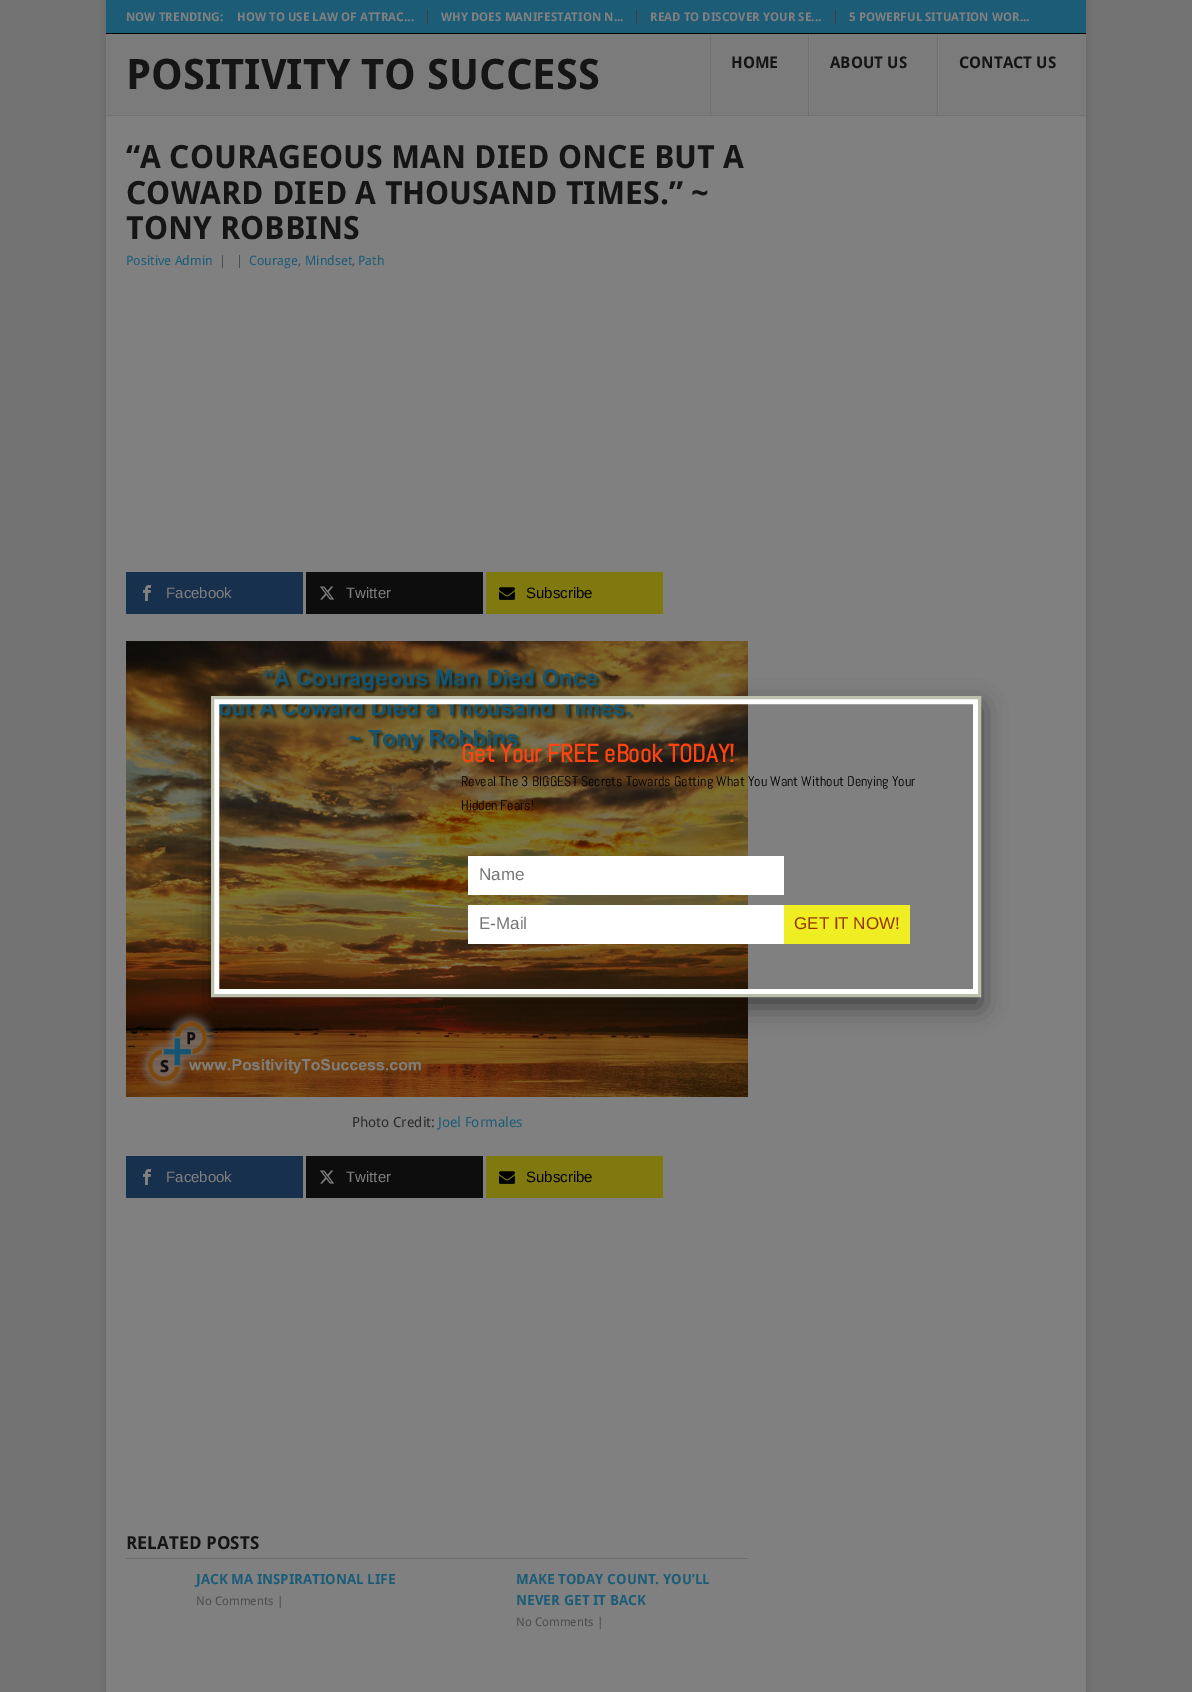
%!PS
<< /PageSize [1192 1692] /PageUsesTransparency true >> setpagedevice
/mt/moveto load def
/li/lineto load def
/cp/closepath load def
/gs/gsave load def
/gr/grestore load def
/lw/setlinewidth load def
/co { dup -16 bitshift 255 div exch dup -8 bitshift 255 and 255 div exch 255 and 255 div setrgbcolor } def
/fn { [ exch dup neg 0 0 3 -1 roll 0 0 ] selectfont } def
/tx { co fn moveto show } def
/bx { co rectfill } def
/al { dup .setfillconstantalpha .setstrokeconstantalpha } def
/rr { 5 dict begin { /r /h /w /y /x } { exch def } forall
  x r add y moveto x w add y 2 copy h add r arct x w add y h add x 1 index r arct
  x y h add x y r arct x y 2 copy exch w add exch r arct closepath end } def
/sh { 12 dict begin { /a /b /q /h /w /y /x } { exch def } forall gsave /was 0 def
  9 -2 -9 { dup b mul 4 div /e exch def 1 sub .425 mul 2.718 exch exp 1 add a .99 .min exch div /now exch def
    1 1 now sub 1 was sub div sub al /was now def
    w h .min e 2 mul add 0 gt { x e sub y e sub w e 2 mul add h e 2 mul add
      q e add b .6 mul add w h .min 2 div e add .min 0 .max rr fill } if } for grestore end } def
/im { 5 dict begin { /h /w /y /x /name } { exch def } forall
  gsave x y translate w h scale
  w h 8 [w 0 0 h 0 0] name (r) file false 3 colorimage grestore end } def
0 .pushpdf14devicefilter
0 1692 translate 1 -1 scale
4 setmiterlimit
0 0 1192 1692 16#747373 bx
16#191919 co
106 0 980 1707 0 5 .17 sh
106 116 980 1576 16#808080 bx
106 0 980 33 16#1C5C77 bx
106 33 980 1 16#000000 bx
427 10 1 14 16#3F3F3F bx
636 10 1 14 16#3F3F3F bx
835 10 1 14 16#3F3F3F bx
106 34 980 81 16#7B7B7B bx
808 34 1 82 16#717171 bx
710 34 1 82 16#717171 bx
937 34 1 82 16#717171 bx
809 34 1 82 16#808080 bx
938 34 1 82 16#808080 bx
106 115 980 1 16#717171 bx
126 572 177 42 16#17304D bx
(media/1.raw) 143 585 8 16 im
306 572 177 42 16#0D0D0D bx
(media/2.raw) 320 586 15 14 im
486 572 177 42 16#807910 bx
(media/3.raw) 499 587 16 13 im
(media/4.raw) 126 641 622 456 im
126 1156 177 42 16#17304D bx
(media/1.raw) 143 1169 8 16 im
306 1156 177 42 16#0D0D0D bx
(media/2.raw) 320 1170 15 14 im
486 1156 177 42 16#807910 bx
(media/3.raw) 499 1171 16 13 im
126 1558 622 1 16#6C6C6C bx
gs
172 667 mt 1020 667 li 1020 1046 li 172 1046 li cp 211 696 mt 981 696 li 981 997 li 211 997 li cp eoclip newpath
16#000000 co
211 706 770 301 0 12.5 .5 sh
gr
16#FFFFFF co
5 lw
216.5 701.5 759 290 rectstroke
16#BAC0AC co
3 lw
212.5 697.5 767 298 rectstroke
468 856 316 39 16#FFFFFF bx
468 905 316 39 16#FFFFFF bx
784 905 126 39 16#EEEE22 bx
(NOW TRENDING:) 126 21 /DroidSans-Bold 12 16#808080 tx
(HOW TO USE LAW OF ATTRAC...) 237 21 /DroidSans-Bold 12 16#808080 tx
(WHY DOES MANIFESTATION N...) 441 21 /DroidSans-Bold 12 16#808080 tx
(READ TO DISCOVER YOUR SE...) 650 21 /DroidSans-Bold 12 16#808080 tx
(5 POWERFUL SITUATION WOR...) 849 21 /DroidSans-Bold 12 16#808080 tx
(POSITIVITY TO SUCCESS) 126 89 /DroidSans-Bold 42 16#151515 tx
(HOME) 731 68 /DroidSans-Bold 16 16#151515 tx
(ABOUT US) 830 68 /DroidSans-Bold 16 16#151515 tx
(CONTACT US) 959 68 /DroidSans-Bold 16 16#151515 tx
(“A COURAGEOUS MAN DIED ONCE BUT A) 126 168 /DroidSans-Bold 32 16#151515 tx
(COWARD DIED A THOUSAND TIMES.” ~) 126 204 /DroidSans-Bold 32 16#151515 tx
(TONY ROBBINS) 126 239 /DroidSans-Bold 32 16#151515 tx
(Positive Admin) 126 265 /DroidSans-Regular 13 16#1C5C77 tx
(|) 219 265 /DroidSans-Regular 13 16#4D4D4D tx
(|) 236 265 /DroidSans-Regular 13 16#4D4D4D tx
(Courage) 249 265 /DroidSans-Regular 13 16#1C5C77 tx
(,) 298 265 /DroidSans-Regular 13 16#4D4D4D tx
(Mindset) 305 265 /DroidSans-Regular 13 16#1C5C77 tx
(,) 352 265 /DroidSans-Regular 13 16#4D4D4D tx
(Path) 358 265 /DroidSans-Regular 13 16#1C5C77 tx
(Facebook) 166 598 /LiberationSans-Regular 15 16#808080 tx
(Twitter) 346 598 /LiberationSans-Regular 15 16#808080 tx
(Subscribe) 526 598 /LiberationSans-Regular 15 16#000000 tx
(Photo Credit:) 352 1127 /DroidSans-Regular 14 16#2B2B2B tx
(Joel Formales) 438 1127 /DroidSans-Regular 14 16#1C5C77 tx
(Facebook) 166 1182 /LiberationSans-Regular 15 16#808080 tx
(Twitter) 346 1182 /LiberationSans-Regular 15 16#808080 tx
(Subscribe) 526 1182 /LiberationSans-Regular 15 16#000000 tx
(RELATED POSTS) 126 1549 /DroidSans-Bold 18 16#151515 tx
(JACK MA INSPIRATIONAL LIFE) 196 1584 /DroidSans-Bold 14 16#1C5C77 tx
(No Comments |) 196 1605 /DroidSans-Regular 12 16#4D4D4D tx
(MAKE TODAY COUNT. YOU’LL) 516 1584 /DroidSans-Bold 14 16#1C5C77 tx
(NEVER GET IT BACK) 516 1605 /DroidSans-Bold 14 16#1C5C77 tx
(No Comments |) 516 1626 /DroidSans-Regular 12 16#4D4D4D tx
(Get Your FREE eBook TODAY!) 461 762 /Abel-Bold 25 16#FF4411 tx
(Reveal The 3 BIGGEST Secrets Towards Getting What You Want Without Denying Your) 461 786 /Abel-Regular 14 16#000000 tx
(Hidden Fears!) 461 810 /Abel-Regular 14 16#000000 tx
(Name) 479 880 /LiberationSans-Regular 17 16#757575 tx
(E-Mail) 479 929 /LiberationSans-Regular 17 16#757575 tx
(GET IT NOW!) 794 929 /LiberationSans-Regular 17 16#993300 tx
.poppdf14devicefilter showpage
